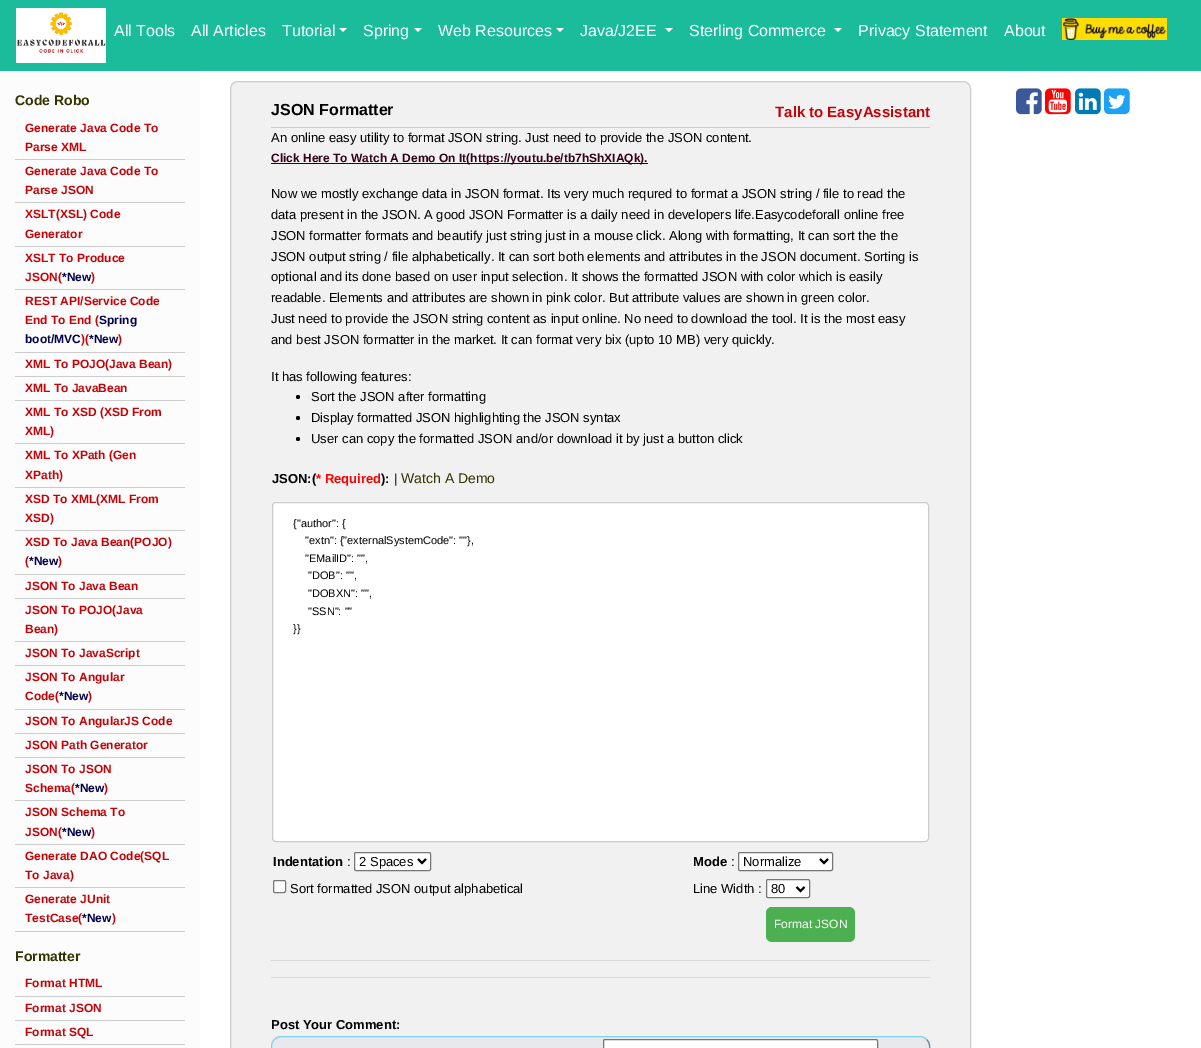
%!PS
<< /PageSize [1201 1048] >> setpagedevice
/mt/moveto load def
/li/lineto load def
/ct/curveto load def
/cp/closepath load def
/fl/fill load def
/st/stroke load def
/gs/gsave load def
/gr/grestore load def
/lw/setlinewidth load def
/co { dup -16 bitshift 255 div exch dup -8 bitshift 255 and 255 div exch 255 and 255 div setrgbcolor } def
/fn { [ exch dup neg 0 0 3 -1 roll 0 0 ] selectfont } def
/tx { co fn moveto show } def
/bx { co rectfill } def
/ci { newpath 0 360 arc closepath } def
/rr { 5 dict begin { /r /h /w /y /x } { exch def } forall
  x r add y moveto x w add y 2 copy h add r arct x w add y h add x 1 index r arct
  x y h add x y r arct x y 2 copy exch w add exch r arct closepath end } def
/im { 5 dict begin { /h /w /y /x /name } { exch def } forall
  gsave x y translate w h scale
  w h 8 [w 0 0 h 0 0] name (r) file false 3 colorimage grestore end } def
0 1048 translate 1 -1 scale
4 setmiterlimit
0 0 1201 1048 16#FFFFFF bx
0 0 1201 71 16#1ABC9C bx
(media/1.raw) 16 8 90 55 im
16#FFFFFF co
339 28 mt 347 28 li 343 32 li cp fl
414 28 mt 422 28 li 418 32 li cp fl
556 28 mt 564 28 li 560 32 li cp fl
665 28 mt 673 28 li 669 32 li cp fl
834 28 mt 842 28 li 838 32 li cp fl
(media/2.raw) 1062 18 105 22 im
0 71 200 977 16#FCFCFC bx
15 159 170 1 16#CCCCCC bx
15 202 170 1 16#CCCCCC bx
15 246 170 1 16#CCCCCC bx
15 289 170 1 16#CCCCCC bx
15 352 170 1 16#CCCCCC bx
15 376 170 1 16#CCCCCC bx
15 400 170 1 16#CCCCCC bx
15 443 170 1 16#CCCCCC bx
15 487 170 1 16#CCCCCC bx
15 530 170 1 16#CCCCCC bx
15 574 170 1 16#CCCCCC bx
15 598 170 1 16#CCCCCC bx
15 641 170 1 16#CCCCCC bx
15 665 170 1 16#CCCCCC bx
15 709 170 1 16#CCCCCC bx
15 733 170 1 16#CCCCCC bx
15 757 170 1 16#CCCCCC bx
15 800 170 1 16#CCCCCC bx
15 844 170 1 16#CCCCCC bx
15 887 170 1 16#CCCCCC bx
15 931 170 1 16#CCCCCC bx
15 996 170 1 16#CCCCCC bx
15 1020 170 1 16#CCCCCC bx
15 1044 170 1 16#CCCCCC bx
16#F1F1F1 co
230.5 81.5 740 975 7.5 rr gs fl gr
16#CCCCCC co
st
271 127 659 1 16#CCCCCC bx
271 163 377 1 16#33001A bx
16#000000 co
298 397 2 ci fl
298 418 2 ci fl
298 439 2 ci fl
16#FFFFFF co
272.5 502.5 656 339 3.5 rr gs fl gr
16#CCCCCC co
st
16#FFFFFF co
354.5 852.5 76 18 1.5 rr gs fl gr
16#767676 co
st
16#000000 co
2 lw
418 859 mt 422 863 li 426 859 li st
16#FFFFFF co
738.5 852.5 94 18 1.5 rr gs fl gr
16#767676 co
1 lw
st
16#000000 co
2 lw
820 859 mt 824 863 li 828 859 li st
16#FFFFFF co
273.5 880.5 12 12 1.5 rr gs fl gr
16#767676 co
1 lw
st
16#FFFFFF co
766.5 879.5 43 18 1.5 rr gs fl gr
16#767676 co
st
16#000000 co
2 lw
796.5 887 mt 800.5 891 li 804.5 887 li st
16#4CAF50 co
766 907 89 35 6 rr fl
271 960 659 1 16#D9D9D9 bx
271 977 659 1 16#D9D9D9 bx
16#E8E9ED co
271 1036 659 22 10 rr fl
16#5A899D co
1 lw
926.5 1039.5 mt 928.5 1041 929.5 1043.5 929.5 1046 ct 929.5 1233 li 929.5 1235.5 928.5 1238 926.5 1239.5 ct 925 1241.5 922.5 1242.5 920 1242.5 ct 281 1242.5 li 278.5 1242.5 276 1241.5 274.5 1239.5 ct st
16#87CEEB co
274.5 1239.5 mt 272.5 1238 271.5 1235.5 271.5 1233 ct 271.5 1046 li 271.5 1043.5 272.5 1041 274.5 1039.5 ct 276 1037.5 278.5 1036.5 281 1036.5 ct 920 1036.5 li 922.5 1036.5 925 1037.5 926.5 1039.5 ct st
16#FFFFFF co
603.5 1039.5 274 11 1.5 rr gs fl gr
16#767676 co
st
(media/3.raw) 1016 88 26 27 im
(media/4.raw) 1045 88 26 27 im
(media/5.raw) 1075 88 26 27 im
(media/6.raw) 1104 88 26 27 im
(All Tools) 114 36 /LiberationSans-Regular 16 16#FFFFFF tx
(All Articles) 191 36 /LiberationSans-Regular 16 16#FFFFFF tx
(Tutorial) 282 36 /LiberationSans-Regular 16 16#FFFFFF tx
(Spring) 363 36 /LiberationSans-Regular 16 16#FFFFFF tx
(Web Resources) 438 36 /LiberationSans-Regular 16 16#FFFFFF tx
(Java/J2EE) 580 36 /LiberationSans-Regular 16 16#FFFFFF tx
(Sterling Commerce) 689 36 /LiberationSans-Regular 16 16#FFFFFF tx
(Privacy Statement) 858 36 /LiberationSans-Regular 16 16#FFFFFF tx
(About) 1004 36 /LiberationSans-Regular 16 16#FFFFFF tx
(Code Robo) 15 105 /LiberationSans-Bold 14 16#333300 tx
(Generate Java Code To) 25 132 /LiberationSans-Bold 12 16#C20409 tx
(Parse XML) 25 151 /LiberationSans-Bold 12 16#C20409 tx
(Generate Java Code To) 25 175 /LiberationSans-Bold 12 16#C20409 tx
(Parse JSON) 25 194 /LiberationSans-Bold 12 16#C20409 tx
(XSLT\(XSL\) Code) 25 218 /LiberationSans-Bold 12 16#C20409 tx
(Generator) 25 238 /LiberationSans-Bold 12 16#C20409 tx
(XSLT To Produce) 25 262 /LiberationSans-Bold 12 16#C20409 tx
(JSON\() 25 281 /LiberationSans-Bold 12 16#C20409 tx
(*New) 62 281 /LiberationSans-Bold 12 16#00004D tx
(\)) 91 281 /LiberationSans-Bold 12 16#C20409 tx
(REST API/Service Code) 25 305 /LiberationSans-Bold 12 16#C20409 tx
(End To End \() 25 324 /LiberationSans-Bold 12 16#C20409 tx
(Spring) 99 324 /LiberationSans-Bold 12 16#00004D tx
(boot/MVC) 25 343 /LiberationSans-Bold 12 16#00004D tx
(\)\() 81 343 /LiberationSans-Bold 12 16#C20409 tx
(*New) 89 343 /LiberationSans-Bold 12 16#00004D tx
(\)) 118 343 /LiberationSans-Bold 12 16#C20409 tx
(XML To POJO\(Java Bean\)) 25 368 /LiberationSans-Bold 12 16#C20409 tx
(XML To JavaBean) 25 392 /LiberationSans-Bold 12 16#C20409 tx
(XML To XSD \(XSD From) 25 416 /LiberationSans-Bold 12 16#C20409 tx
(XML\)) 25 435 /LiberationSans-Bold 12 16#C20409 tx
(XML To XPath \(Gen) 25 459 /LiberationSans-Bold 12 16#C20409 tx
(XPath\)) 25 479 /LiberationSans-Bold 12 16#C20409 tx
(XSD To XML\(XML From) 25 503 /LiberationSans-Bold 12 16#C20409 tx
(XSD\)) 25 522 /LiberationSans-Bold 12 16#C20409 tx
(XSD To Java Bean\(POJO\)) 25 546 /LiberationSans-Bold 12 16#C20409 tx
(\() 25 565 /LiberationSans-Bold 12 16#C20409 tx
(*New) 29 565 /LiberationSans-Bold 12 16#00004D tx
(\)) 58 565 /LiberationSans-Bold 12 16#C20409 tx
(JSON To Java Bean) 25 590 /LiberationSans-Bold 12 16#C20409 tx
(JSON To POJO\(Java) 25 614 /LiberationSans-Bold 12 16#C20409 tx
(Bean\)) 25 633 /LiberationSans-Bold 12 16#C20409 tx
(JSON To JavaScript) 25 657 /LiberationSans-Bold 12 16#C20409 tx
(JSON To Angular) 25 681 /LiberationSans-Bold 12 16#C20409 tx
(Code\() 25 700 /LiberationSans-Bold 12 16#C20409 tx
(*New) 59 700 /LiberationSans-Bold 12 16#00004D tx
(\)) 88 700 /LiberationSans-Bold 12 16#C20409 tx
(JSON To AngularJS Code) 25 725 /LiberationSans-Bold 12 16#C20409 tx
(JSON Path Generator) 25 749 /LiberationSans-Bold 12 16#C20409 tx
(JSON To JSON) 25 773 /LiberationSans-Bold 12 16#C20409 tx
(Schema\() 25 792 /LiberationSans-Bold 12 16#C20409 tx
(*New) 75 792 /LiberationSans-Bold 12 16#00004D tx
(\)) 104 792 /LiberationSans-Bold 12 16#C20409 tx
(JSON Schema To) 25 816 /LiberationSans-Bold 12 16#C20409 tx
(JSON\() 25 836 /LiberationSans-Bold 12 16#C20409 tx
(*New) 62 836 /LiberationSans-Bold 12 16#00004D tx
(\)) 91 836 /LiberationSans-Bold 12 16#C20409 tx
(Generate DAO Code\(SQL) 25 860 /LiberationSans-Bold 12 16#C20409 tx
(To Java\)) 25 879 /LiberationSans-Bold 12 16#C20409 tx
(Generate JUnit) 25 903 /LiberationSans-Bold 12 16#C20409 tx
(TestCase\() 25 922 /LiberationSans-Bold 12 16#C20409 tx
(*New) 82 922 /LiberationSans-Bold 12 16#00004D tx
(\)) 112 922 /LiberationSans-Bold 12 16#C20409 tx
(Formatter) 15 961 /LiberationSans-Bold 14 16#333300 tx
(Format HTML) 25 987 /LiberationSans-Bold 12 16#C20409 tx
(Format JSON) 25 1012 /LiberationSans-Bold 12 16#C20409 tx
(Format SQL) 25 1036 /LiberationSans-Bold 12 16#C20409 tx
(JSON Formatter) 271 115 /LiberationSans-Bold 16 16#000000 tx
(Talk to EasyAssistant) 775 117 /LiberationSans-Bold 15 16#C20409 tx
(An online easy utility to format JSON string. Just need to provide the JSON content.) 271 142 /LiberationSans-Regular 13 16#000000 tx
(Click Here To Watch A Demo On It\(https://youtu.be/tb7hShXIAQk\).) 271 162 /LiberationSans-Bold 12 16#33001A tx
(Now we mostly exchange data in JSON format. Its very much requred to format a JSON string / file to read the) 271 198 /LiberationSans-Regular 13 16#000000 tx
(data present in the JSON. A good JSON Formatter is a daily need in developers life.Easycodeforall online free) 271 219 /LiberationSans-Regular 13 16#000000 tx
(JSON formatter formats and beautify just string just in a mouse click. Along with formatting, It can sort the the) 271 240 /LiberationSans-Regular 13 16#000000 tx
(JSON output string / file alphabetically. It can sort both elements and attributes in the JSON document. Sorting is) 271 261 /LiberationSans-Regular 13 16#000000 tx
(optional and its done based on user input selection. It shows the formatted JSON with color which is easily) 271 281 /LiberationSans-Regular 13 16#000000 tx
(readable. Elements and attributes are shown in pink color. But attribute values are shown in green color.) 271 302 /LiberationSans-Regular 13 16#000000 tx
(Just need to provide the JSON string content as input online. No need to download the tool. It is the most easy) 271 323 /LiberationSans-Regular 13 16#000000 tx
(and best JSON formatter in the market. It can format very bix \(upto 10 MB\) very quickly.) 271 344 /LiberationSans-Regular 13 16#000000 tx
(It has following features:) 271 381 /LiberationSans-Regular 13 16#000000 tx
(Sort the JSON after formatting) 311 401 /LiberationSans-Regular 13 16#000000 tx
(Display formatted JSON highlighting the JSON syntax) 311 422 /LiberationSans-Regular 13 16#000000 tx
(User can copy the formatted JSON and/or download it by just a button click) 311 443 /LiberationSans-Regular 13 16#000000 tx
(JSON:\() 272 483 /LiberationSans-Bold 13 16#000000 tx
(* Required) 316 483 /LiberationSans-Bold 13 16#FF0000 tx
(\):) 381 483 /LiberationSans-Bold 13 16#000000 tx
(|) 394 483 /LiberationSans-Regular 13 16#000000 tx
(Watch A Demo) 401 483 /LiberationSans-Regular 14 16#333300 tx
({"author": {) 293 527 /LiberationSans-Regular 11 16#000000 tx
("extn": {"externalSystemCode": ""},) 305 544 /LiberationSans-Regular 11 16#000000 tx
("EMailID": "",) 305 562 /LiberationSans-Regular 11 16#000000 tx
("DOB": "",) 308 579 /LiberationSans-Regular 11 16#000000 tx
("DOBXN": "",) 308 597 /LiberationSans-Regular 11 16#000000 tx
("SSN": "") 308 615 /LiberationSans-Regular 11 16#000000 tx
(}}) 293 632 /LiberationSans-Regular 11 16#000000 tx
(Indentation) 273 866 /LiberationSans-Bold 13 16#000000 tx
(:) 347 866 /LiberationSans-Regular 13 16#000000 tx
(2 Spaces) 359 866 /LiberationSans-Regular 13 16#000000 tx
(Mode) 693 866 /LiberationSans-Bold 13 16#000000 tx
(:) 731 866 /LiberationSans-Regular 13 16#000000 tx
(Normalize) 743 866 /LiberationSans-Regular 13 16#000000 tx
(Sort formatted JSON output alphabetical) 290 893 /LiberationSans-Regular 13 16#000000 tx
(Line Width :) 693 893 /LiberationSans-Regular 13 16#000000 tx
(80) 771 893 /LiberationSans-Regular 13 16#000000 tx
(Format JSON) 774 928 /LiberationSans-Regular 12 16#FFFFFF tx
(Post Your Comment:) 271 1029 /LiberationSans-Bold 13 16#000000 tx
showpage
